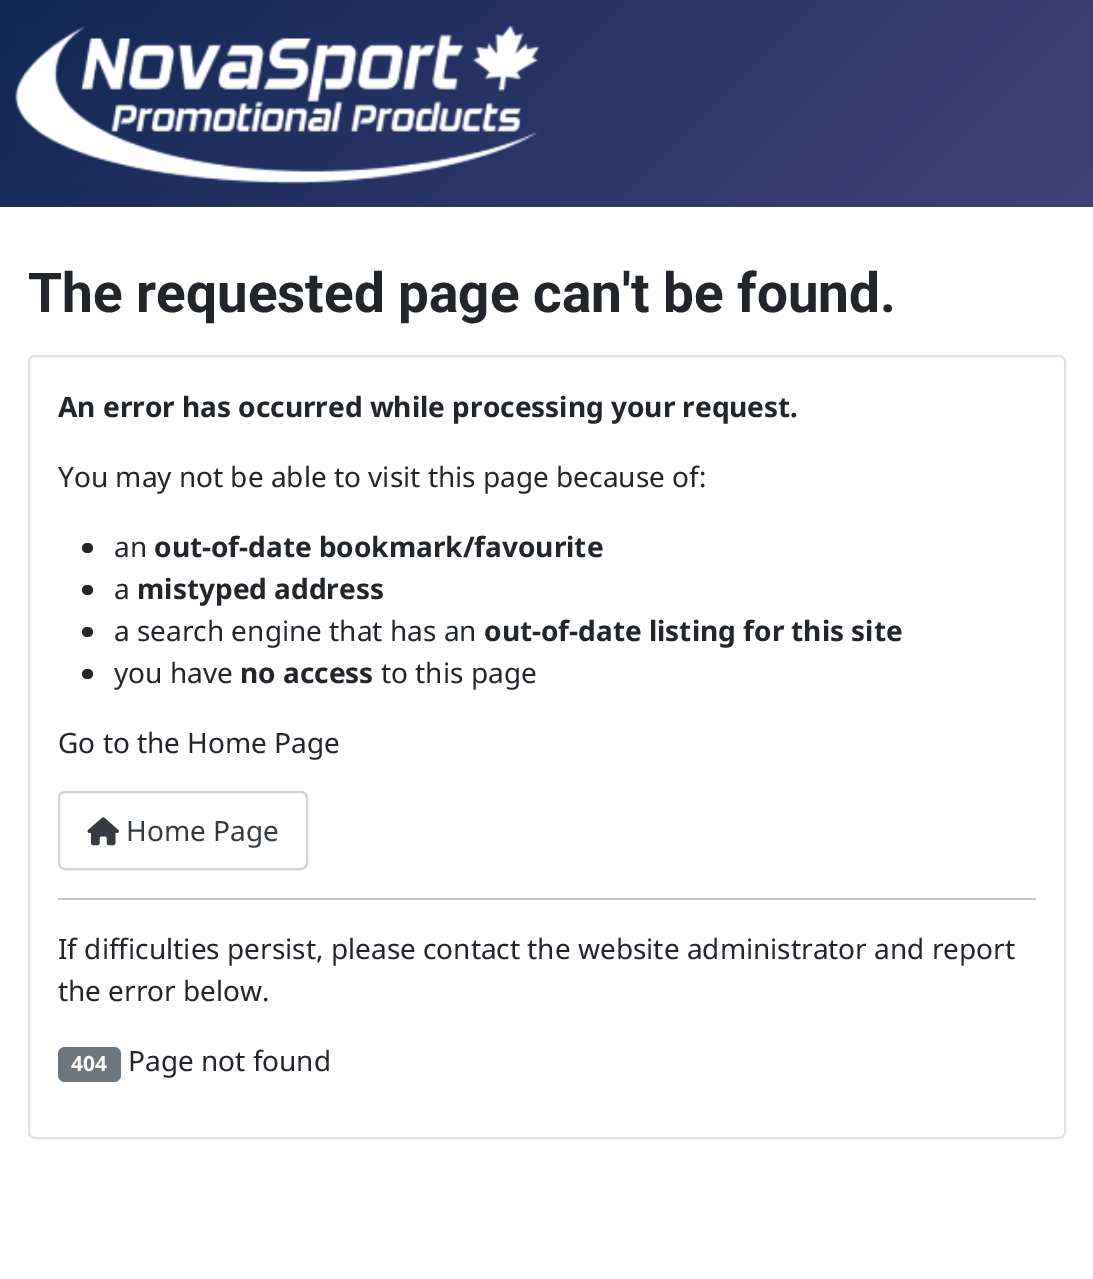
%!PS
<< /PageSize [1093 1279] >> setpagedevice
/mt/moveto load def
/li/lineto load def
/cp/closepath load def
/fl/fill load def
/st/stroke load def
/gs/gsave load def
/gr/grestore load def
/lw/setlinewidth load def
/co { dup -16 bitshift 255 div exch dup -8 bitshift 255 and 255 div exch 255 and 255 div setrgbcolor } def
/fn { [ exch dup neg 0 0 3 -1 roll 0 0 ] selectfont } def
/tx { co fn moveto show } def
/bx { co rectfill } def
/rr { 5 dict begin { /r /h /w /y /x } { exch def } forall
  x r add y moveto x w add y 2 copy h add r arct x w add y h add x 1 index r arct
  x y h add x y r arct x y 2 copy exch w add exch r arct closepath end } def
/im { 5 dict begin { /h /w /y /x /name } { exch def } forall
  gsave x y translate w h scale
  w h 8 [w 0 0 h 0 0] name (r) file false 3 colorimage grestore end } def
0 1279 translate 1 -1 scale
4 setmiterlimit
0 0 1093 1279 16#FFFFFF bx
gs 0 0 mt 1093 0 li 1093 207 li 0 207 li cp clip newpath
<< /ShadingType 2 /ColorSpace /DeviceRGB /Coords [222 -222 872 428] /Extend [true true] /Function << /FunctionType 2 /Domain [0 1] /C0 [.067 .157 .333] /C1 [.259 .251 .467] /N 1 >> >> shfill gr
(media/1.raw) 15 25 524 159 im
16#DFE3E7 co
2 lw
29 356 1036 782 6 rr st
16#22262A co
82 543 11 10 5 rr fl
82 585 11 10 5 rr fl
82 627 11 10 5 rr fl
82 669 11 10 5 rr fl
16#CED4DA co
59 792 248 77 6 rr st
(media/2.raw) 87 817 32 29 im
58 898 978 2 16#C8C9CA bx
16#6D757E co
58 1047 63 35 7 rr fl
(The requested page can't be found.) 28 312 /Roboto-Bold 54.9 16#22262A tx
(An error has occurred while processing your request.) 58 417 /NotoSans-Bold 28 16#22262A tx
(You may not be able to visit this page because of:) 58 487 /NotoSans-Regular 28 16#22262A tx
(an) 114 557 /NotoSans-Regular 28 16#22262A tx
(out-of-date bookmark/favourite) 154 557 /NotoSans-Bold 28 16#22262A tx
(a) 114 599 /NotoSans-Regular 28 16#22262A tx
(mistyped address) 137 599 /NotoSans-Bold 28 16#22262A tx
(a search engine that has an) 114 641 /NotoSans-Regular 28 16#22262A tx
(out-of-date listing for this site) 484 641 /NotoSans-Bold 28 16#22262A tx
(you have) 114 683 /NotoSans-Regular 28 16#22262A tx
(no access) 240 683 /NotoSans-Bold 28 16#22262A tx
(to this page) 381 683 /NotoSans-Regular 28 16#22262A tx
(Go to the Home Page) 58 753 /NotoSans-Regular 28 16#22262A tx
(Home Page) 126 841 /NotoSans-Regular 28 16#353B41 tx
(If difficulties persist, please contact the website administrator and report) 58 959 /NotoSans-Regular 28 16#22262A tx
(the error below.) 58 1001 /NotoSans-Regular 28 16#22262A tx
(404) 71 1071 /NotoSans-Bold 21 16#FFFFFF tx
(Page not found) 128 1071 /NotoSans-Regular 28 16#22262A tx
showpage
